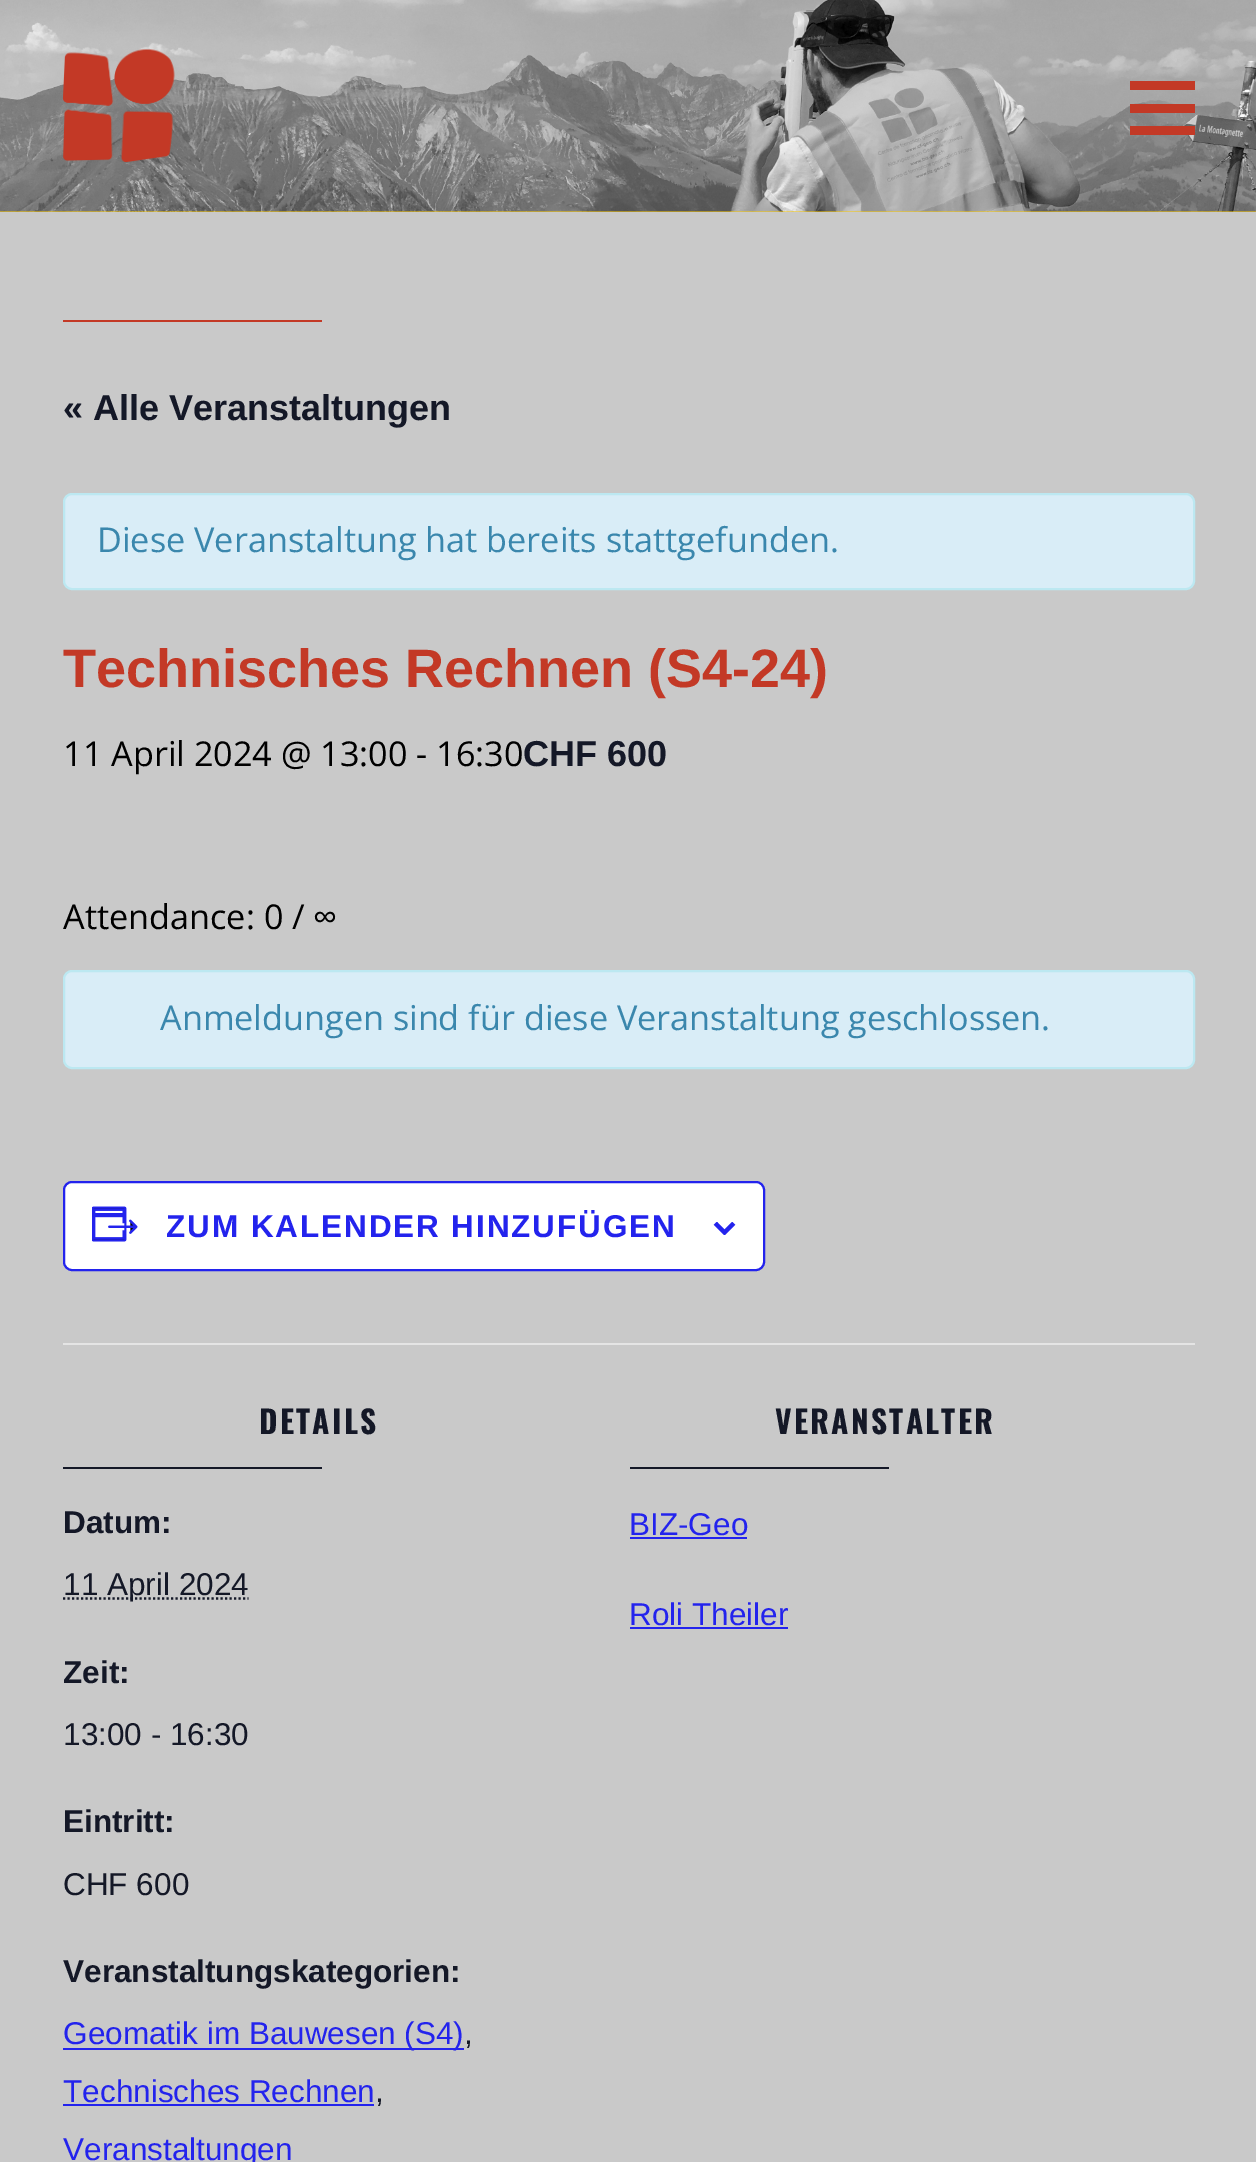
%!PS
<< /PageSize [1256 2162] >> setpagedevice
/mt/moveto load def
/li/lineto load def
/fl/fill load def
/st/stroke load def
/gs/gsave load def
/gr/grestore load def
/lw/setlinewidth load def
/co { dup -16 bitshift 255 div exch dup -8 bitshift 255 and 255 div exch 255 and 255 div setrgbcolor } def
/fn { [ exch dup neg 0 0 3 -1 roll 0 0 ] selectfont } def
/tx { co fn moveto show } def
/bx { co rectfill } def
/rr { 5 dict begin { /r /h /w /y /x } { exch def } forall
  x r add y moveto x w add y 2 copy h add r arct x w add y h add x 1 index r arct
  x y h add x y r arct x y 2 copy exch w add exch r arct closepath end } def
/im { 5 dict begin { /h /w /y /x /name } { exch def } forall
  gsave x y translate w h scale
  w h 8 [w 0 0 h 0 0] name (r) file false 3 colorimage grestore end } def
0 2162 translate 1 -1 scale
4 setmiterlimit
0 0 1256 2162 16#C9C9C9 bx
0 211 1256 1 16#FECD06 bx
(media/1.raw) 0 0 1256 212 im
(media/2.raw) 63 49 112 113 im
1130 81 65 9 16#C33926 bx
1130 126 65 9 16#C33926 bx
1130 104 65 9 16#C33926 bx
63 320 259 2 16#C33926 bx
16#D9EDF7 co
64 494 1130 95 8 rr gs fl gr
16#BCE8F1 co
2 lw
st
16#D9EDF7 co
64 971 1130 97 8 rr gs fl gr
16#BCE8F1 co
st
16#FFFFFF co
64 1182 700 88 8 rr gs fl gr
16#2323ED co
st
(media/3.raw) 92 1206 46 36 im
(media/4.raw) 713 1222 23 13 im
63 1343 1132 2 16#E4E4E4 bx
63 1467 259 2 16#141827 bx
2.2 lw
[2.25 2.25] 0 setdash
63 1598.5 mt 248.5 1598.5 li st
63 2048 401 2 16#2323ED bx
63 2104 311 2 16#2323ED bx
630 1467 259 2 16#141827 bx
630 1537 117 2 16#2323ED bx
630 1627 158 2 16#2323ED bx
(« Alle Veranstaltungen) 63 420 /LiberationSans-Bold 36 16#141827 tx
(Diese Veranstaltung hat bereits stattgefunden.) 97 552 /OpenSans-Regular 34.2 16#3A87AD tx
(Technisches Rechnen \(S4-24\)) 63 687 /LiberationSans-Bold 54 16#C33926 tx
(11 April 2024 @ 13:00 - 16:30) 63 766 /OpenSans-Regular 34.2 16#000000 tx
(CHF 600) 523 766 /LiberationSans-Bold 36 16#141827 tx
(Attendance: 0 / ∞) 63 929 /OpenSans-Regular 34.2 16#000000 tx
(Anmeldungen sind für diese Veranstaltung geschlossen.) 160 1030 /OpenSans-Regular 34.2 16#3A87AD tx
/LiberationSans-Bold 31.5 fn
16#2323ED co
166 1237 mt 1.9 0 (ZUM KALENDER HINZUFÜGEN) ashow
/Oswald-Bold 31.5 fn
16#141827 co
259 1434 mt 2.25 0 (DETAILS) ashow
(Datum:) 63 1533 /LiberationSans-Bold 31.5 16#141827 tx
(11 April 2024) 63 1595 /LiberationSans-Regular 31.5 16#141827 tx
(Zeit:) 63 1683 /LiberationSans-Bold 31.5 16#141827 tx
(13:00 - 16:30) 63 1745 /LiberationSans-Regular 31.5 16#141827 tx
(Eintritt:) 63 1832 /LiberationSans-Bold 31.5 16#141827 tx
(CHF 600) 63 1895 /LiberationSans-Regular 31.5 16#141827 tx
(Veranstaltungskategorien:) 63 1982 /LiberationSans-Bold 31.5 16#141827 tx
(Geomatik im Bauwesen \(S4\)) 63 2044 /LiberationSans-Regular 31.5 16#2323ED tx
(,) 464 2044 /LiberationSans-Regular 31.5 16#141827 tx
(Technisches Rechnen) 63 2102 /LiberationSans-Regular 31.5 16#2323ED tx
(,) 375 2102 /LiberationSans-Regular 31.5 16#141827 tx
(Veranstaltungen) 63 2160 /LiberationSans-Regular 31.5 16#2323ED tx
/Oswald-Bold 31.5 fn
16#141827 co
775 1434 mt 2.25 0 (VERANSTALTER) ashow
(BIZ-Geo) 629 1535 /LiberationSans-Regular 31.5 16#2323ED tx
(Roli Theiler) 629 1625 /LiberationSans-Regular 31.5 16#2323ED tx
showpage
